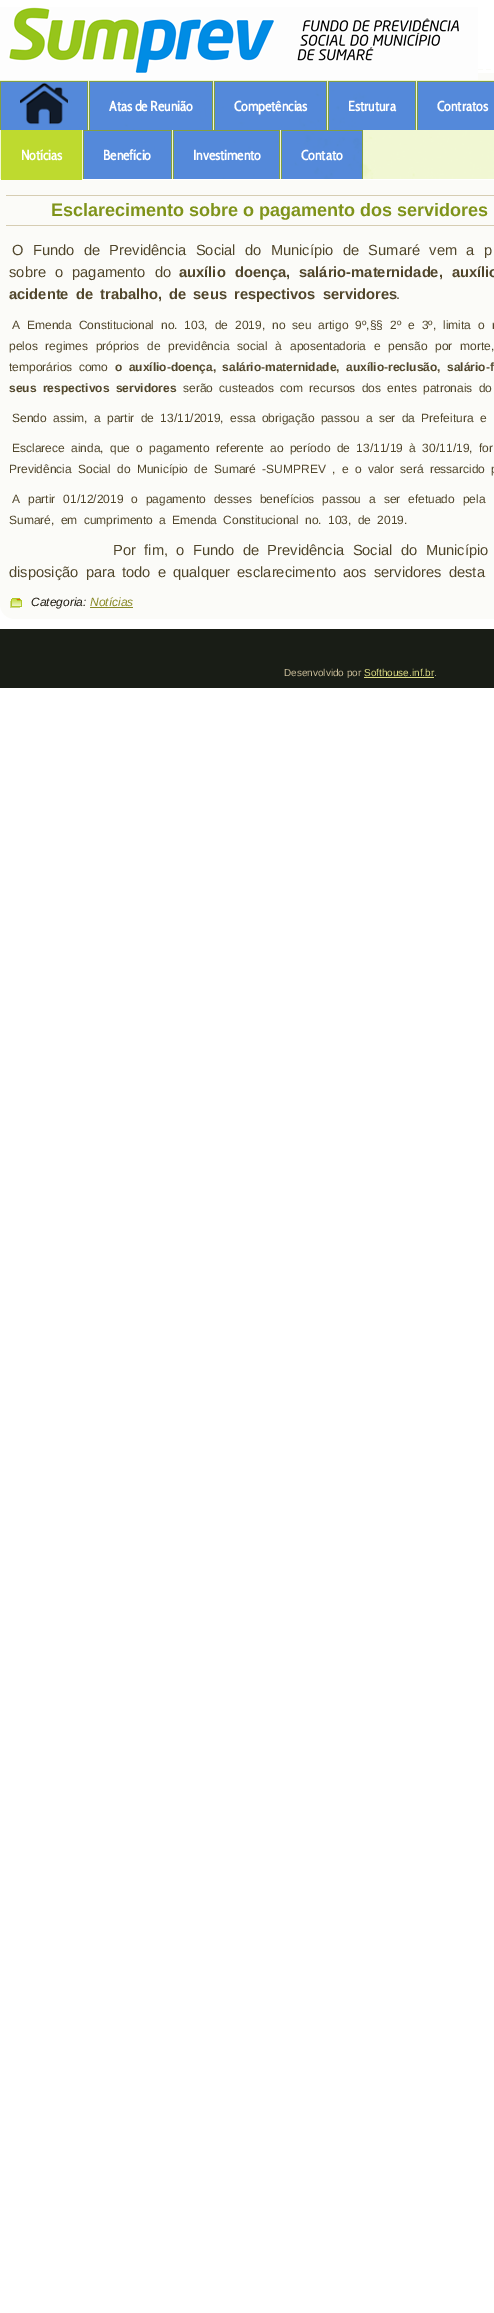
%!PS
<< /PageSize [494 2313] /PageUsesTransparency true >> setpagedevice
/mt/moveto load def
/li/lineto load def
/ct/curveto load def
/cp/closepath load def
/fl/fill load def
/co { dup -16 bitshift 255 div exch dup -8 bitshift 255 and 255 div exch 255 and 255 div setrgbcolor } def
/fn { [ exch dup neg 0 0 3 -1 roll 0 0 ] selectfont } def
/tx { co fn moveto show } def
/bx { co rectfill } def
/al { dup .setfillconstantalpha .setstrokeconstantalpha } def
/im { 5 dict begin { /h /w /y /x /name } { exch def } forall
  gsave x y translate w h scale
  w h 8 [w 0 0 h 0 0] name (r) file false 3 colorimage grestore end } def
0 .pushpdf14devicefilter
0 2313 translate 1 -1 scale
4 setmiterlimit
0 0 494 2313 16#FFFFFF bx
(media/1.raw) 478 69 16 11 im
(media/2.raw) 0 7 478 73 im
0 80 494 99 16#F0F7CF bx
(media/3.raw) 0 80 494 99 im
0.66 al
0 81 88 49 16#0350DD bx
1 al
16#829F43 co
0 81 mt 88 81 li 87 82 li 1 82 li cp fl
0.8 al
16#8EA51D co
88 81 mt 88 130 li 87 130 li 87 82 li cp fl
0 130 mt 0 81 li 1 82 li 1 130 li cp fl
1 al
(media/4.raw) 20 82 48 43 im
0.66 al
89 81 124 49 16#0350DD bx
1 al
16#829F43 co
89 81 mt 213 81 li 212 82 li 90 82 li cp fl
0.8 al
16#8EA51D co
213 81 mt 213 130 li 212 130 li 212 82 li cp fl
89 130 mt 89 81 li 90 82 li 90 130 li cp fl
0.66 al
214 81 113 49 16#0350DD bx
1 al
16#829F43 co
214 81 mt 327 81 li 326 82 li 215 82 li cp fl
0.8 al
16#8EA51D co
327 81 mt 327 130 li 326 130 li 326 82 li cp fl
214 130 mt 214 81 li 215 82 li 215 130 li cp fl
0.66 al
328 81 88 49 16#0350DD bx
1 al
16#829F43 co
328 81 mt 416 81 li 415 82 li 329 82 li cp fl
0.8 al
16#8EA51D co
416 81 mt 416 130 li 415 130 li 415 82 li cp fl
328 130 mt 328 81 li 329 82 li 329 130 li cp fl
1 al
417 81 77 49 16#5489DA bx
16#829F43 co
417 81 mt 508 81 li 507 82 li 418 82 li cp fl
0.8 al
16#8EA51D co
417 130 mt 417 81 li 418 82 li 418 130 li cp fl
1 al
1 130 81 50 16#BEDA2F bx
0.66 al
83 130 89 49 16#0350DD bx
1 al
16#829F43 co
83 130 mt 172 130 li 171 131 li 84 131 li cp fl
0.8 al
16#8EA51D co
172 130 mt 172 179 li 171 179 li 171 131 li cp fl
83 179 mt 83 130 li 84 131 li 84 179 li cp fl
0.66 al
173 130 107 49 16#0350DD bx
1 al
16#829F43 co
173 130 mt 280 130 li 279 131 li 174 131 li cp fl
0.8 al
16#8EA51D co
280 130 mt 280 179 li 279 179 li 279 131 li cp fl
173 179 mt 173 130 li 174 131 li 174 179 li cp fl
0.66 al
281 130 82 49 16#0350DD bx
0.8 al
16#8EA51D co
281 130 mt 363 130 li 362 131 li 282 131 li cp fl
363 130 mt 363 179 li 362 179 li 362 131 li cp fl
281 179 mt 281 130 li 282 131 li 282 179 li cp fl
1 al
16#FBFBF8 co
0 180 mt 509 180 li 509 604 li 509 612.5 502.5 619 494 619 ct 15 619 li 6.5 619 0 612.5 0 604 ct cp fl
6 195 488 1 16#D6CDB3 bx
6 225 488 1 16#D6CDB3 bx
(media/5.raw) 10 598 12 10 im
90 607 43 1 16#888825 bx
0 629 494 59 16#191D16 bx
364 677 70 1 16#DDDD83 bx
(Atas de Reunião) 109 111 /CabinCondensed-Bold 14 16#FFFFFF tx
(Competências) 234 111 /CabinCondensed-Bold 14 16#FFFFFF tx
(Estrutura) 348 111 /CabinCondensed-Bold 14 16#FFFFFF tx
(Contratos) 437 111 /CabinCondensed-Bold 14 16#FFFFFF tx
(Notícias) 21 160 /CabinCondensed-Bold 14 16#FFFFFF tx
(Benefício) 103 160 /CabinCondensed-Bold 14 16#FFFFFF tx
(Investimento) 193 160 /CabinCondensed-Bold 14 16#FFFFFF tx
(Contato) 301 160 /CabinCondensed-Bold 14 16#FFFFFF tx
(Esclarecimento sobre o pagamento dos servidores) 51 216 /LiberationSans-Bold 18 16#7F931A tx
/LiberationSans-Regular 14.7 fn
16#50462B co
12 255 mt 5.25 0 32 (O Fundo de Previdência Social do Município de Sumaré vem a p) widthshow
9 277 mt 5 0 32 (sobre o pagamento do) widthshow
/LiberationSans-Bold 14.7 fn
179 277 mt 5 0 32 (auxílio doença,) widthshow
299 277 mt 5 0 32 (salário-maternidade, auxílio) widthshow
9 299 mt 3 0 32 (acidente de trabalho, de seus respectivos servidores) widthshow
(.) 396 299 /LiberationSans-Regular 14.7 16#50462B tx
/LiberationSans-Regular 12 fn
12 329 mt 3.6 0 32 (A Emenda Constitucional no. 103, de 2019, no seu artigo 9º,§§ 2º e 3º, limita o r) widthshow
9 350 mt 4.4 0 32 (pelos regimes próprios de previdência social à aposentadoria e pensão por morte,) widthshow
9 371 mt 3 0 32 (temporários como) widthshow
/LiberationSans-Bold 12 fn
115 371 mt 3 0 32 (o auxílio-doença, salário-maternidade, auxílio-reclusão, salário-f) widthshow
9 392 mt 3 0 32 (seus respectivos servidores) widthshow
/LiberationSans-Regular 12 fn
183 392 mt 3 0 32 (serão custeados com recursos dos entes patronais do) widthshow
12 422 mt 3 0 32 (Sendo assim, a partir de 13/11/2019, essa obrigação passou a ser da Prefeitura e) widthshow
12 452 mt 3 0 32 (Esclarece ainda, que o pagamento referente ao período de 13/11/19 à 30/11/19, for) widthshow
9 473 mt 3 0 32 (Previdência Social do Município de Sumaré -SUMPREV , e o valor será ressarcido p) widthshow
12 503 mt 4.6 0 32 (A partir 01/12/2019 o pagamento desses benefícios passou a ser efetuado pela) widthshow
9 524 mt 3 0 32 (Sumaré, em cumprimento a Emenda Constitucional no. 103, de 2019.) widthshow
/LiberationSans-Regular 14.7 fn
113 555 mt 4.25 0 32 (Por fim, o Fundo de Previdência Social do Município) widthshow
9 577 mt 3 0 32 (disposição para todo e qualquer esclarecimento aos servidores desta) widthshow
(Categoria:) 31 606 /LiberationSans-Italic 12 16#1B170E tx
(Notícias) 90 606 /LiberationSans-Italic 12 16#888825 tx
(Desenvolvido por) 284 676 /LiberationSans-Regular 10 16#C8BB98 tx
(Softhouse.inf.br) 364 676 /LiberationSans-Regular 10 16#DDDD83 tx
(.) 434 676 /LiberationSans-Regular 10 16#C8BB98 tx
.poppdf14devicefilter showpage
